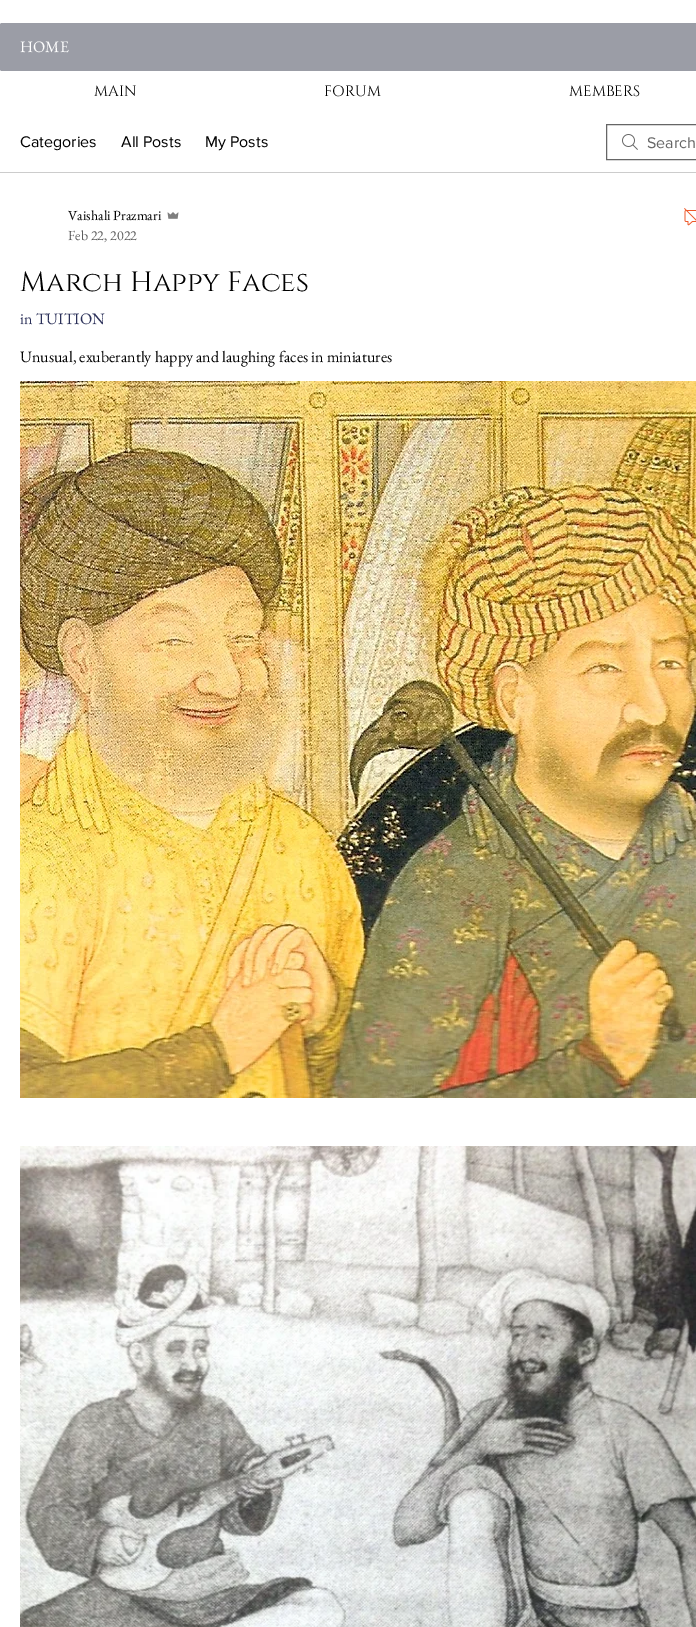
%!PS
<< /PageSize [696 1627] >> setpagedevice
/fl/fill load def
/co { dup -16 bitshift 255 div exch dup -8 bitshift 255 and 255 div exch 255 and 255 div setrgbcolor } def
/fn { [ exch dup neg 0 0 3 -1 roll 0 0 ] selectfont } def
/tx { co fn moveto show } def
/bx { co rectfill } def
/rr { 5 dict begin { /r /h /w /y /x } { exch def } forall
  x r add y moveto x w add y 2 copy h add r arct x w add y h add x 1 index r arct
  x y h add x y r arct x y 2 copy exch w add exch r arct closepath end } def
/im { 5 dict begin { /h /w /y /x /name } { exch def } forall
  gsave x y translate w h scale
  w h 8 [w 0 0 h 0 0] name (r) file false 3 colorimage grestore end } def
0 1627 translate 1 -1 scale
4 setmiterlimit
0 0 696 1627 16#FFFFFF bx
16#9B9DA6 co
0 23 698 48 2 rr fl
0 172 696 1 16#CCCCCC bx
(media/1.raw) 622 134 16 16 im
16#666666 co
606.5 124.5 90 35 rectstroke
(media/2.raw) 167 212 12 7 im
(media/3.raw) 684 208 12 18 im
(media/4.raw) 20 381 676 717 im
(media/5.raw) 20 1146 676 481 im
(HOME) 20 52 /EBGaramond-Regular 16 16#FFFFFF tx
(MAIN) 94 96 /Cinzel-Regular 15 16#000000 tx
(FORUM) 324 96 /Cinzel-Regular 15 16#000000 tx
(MEMBERS) 569 96 /Cinzel-Regular 15 16#000000 tx
(Categories) 20 147 /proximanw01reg-Regular 16 16#000000 tx
(All Posts) 121 147 /proximanw01reg-Regular 16 16#000000 tx
(My Posts) 205 147 /proximanw01reg-Regular 16 16#000000 tx
(Search) 647 148 /proximanw01reg-Regular 16 16#666666 tx
(Vaishali Prazmari) 68 220 /EBGaramond-Regular 14 16#000000 tx
(Feb 22, 2022) 68 240 /EBGaramond-Regular 14 16#5C5C5C tx
(March Happy Faces) 20 291 /Cinzel-Regular 28 16#000000 tx
(in TUITION) 20 324 /EBGaramond-Regular 16 16#2B3059 tx
(Unusual, exuberantly happy and laughing faces in miniatures) 20 362 /EBGaramond-Regular 16 16#000000 tx
showpage
